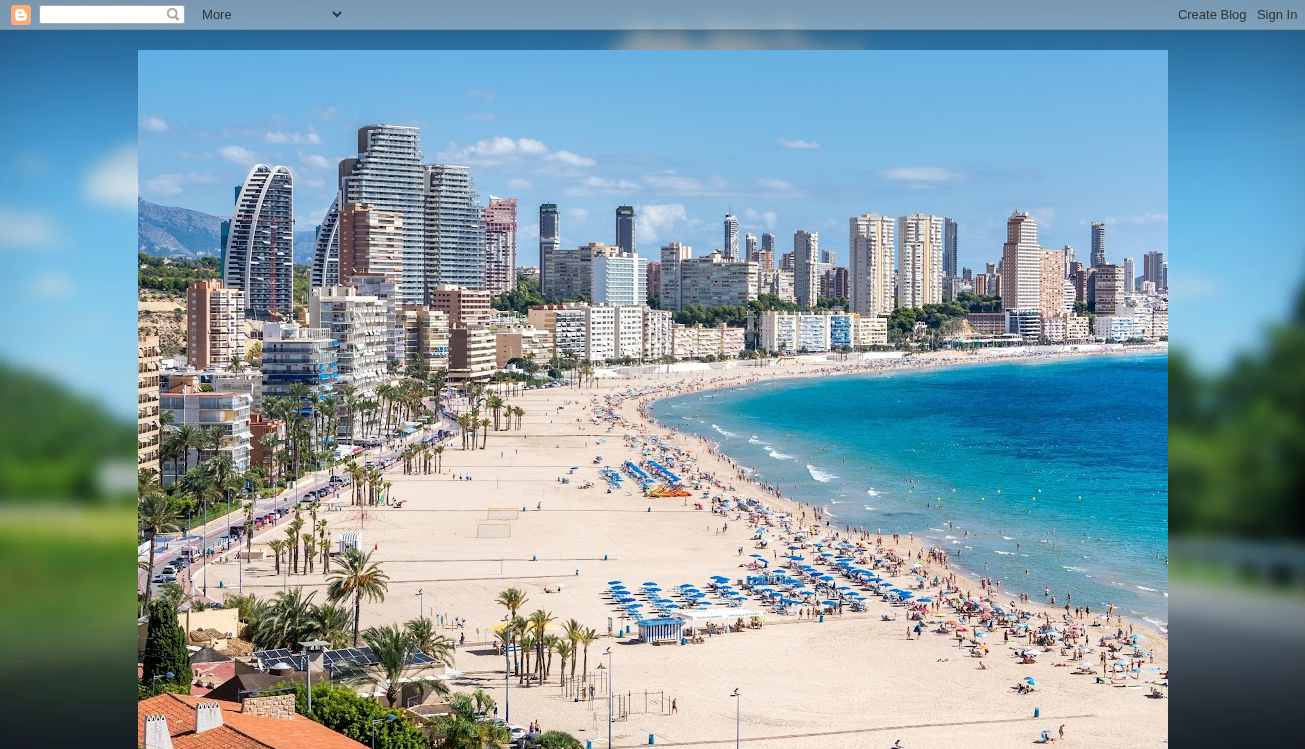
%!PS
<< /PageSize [1305 749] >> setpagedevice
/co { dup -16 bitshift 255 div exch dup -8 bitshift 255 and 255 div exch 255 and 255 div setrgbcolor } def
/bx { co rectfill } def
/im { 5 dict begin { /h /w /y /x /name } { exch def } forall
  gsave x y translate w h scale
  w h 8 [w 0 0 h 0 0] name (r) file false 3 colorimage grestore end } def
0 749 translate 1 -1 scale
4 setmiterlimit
0 0 1305 749 16#FFFFFF bx
(media/1.raw) 0 0 1305 749 im
(media/2.raw) 0 0 1305 30 im
(media/3.raw) 138 50 1030 699 im
showpage
